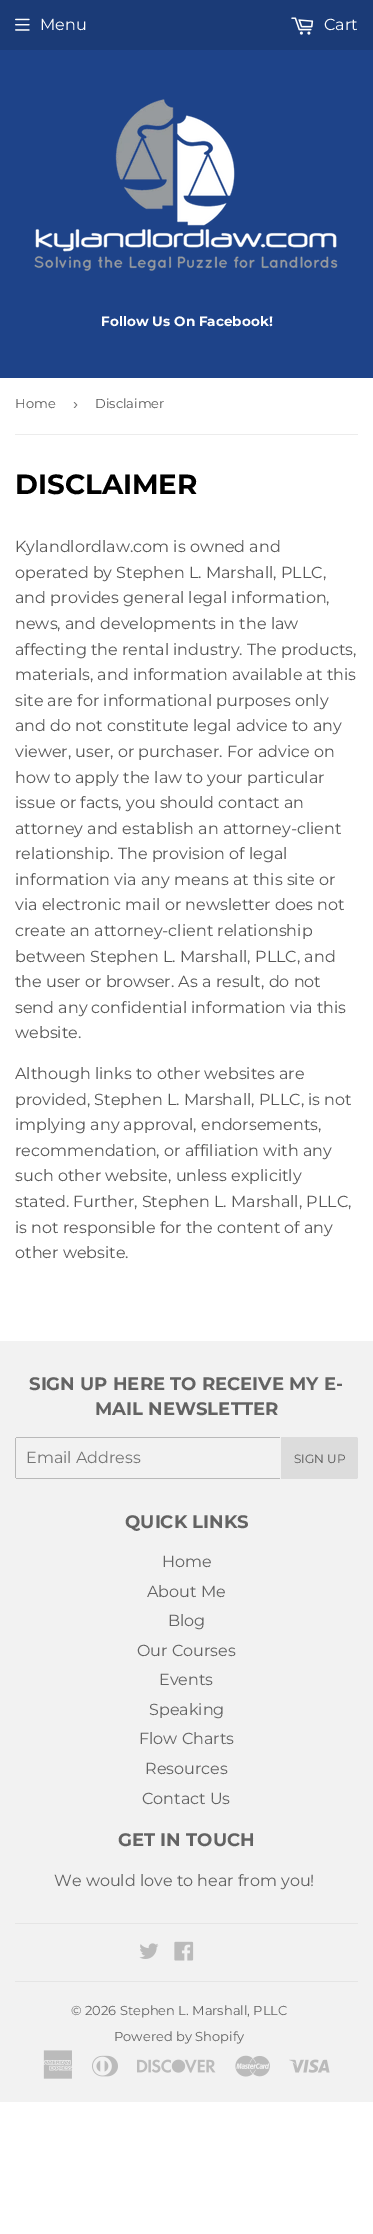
%!PS
<< /PageSize [373 2234] >> setpagedevice
/mt/moveto load def
/li/lineto load def
/ct/curveto load def
/cp/closepath load def
/fl/fill load def
/co { dup -16 bitshift 255 div exch dup -8 bitshift 255 and 255 div exch 255 and 255 div setrgbcolor } def
/fn { [ exch dup neg 0 0 3 -1 roll 0 0 ] selectfont } def
/tx { co fn moveto show } def
/bx { co rectfill } def
/im { 5 dict begin { /h /w /y /x /name } { exch def } forall
  gsave x y translate w h scale
  w h 8 [w 0 0 h 0 0] name (r) file false 3 colorimage grestore end } def
0 2234 translate 1 -1 scale
4 setmiterlimit
0 0 373 2234 16#FFFFFF bx
0 0 373 50 16#1B3B77 bx
(media/1.raw) 15 18 15 13 im
(media/2.raw) 291 17 23 18 im
0 50 373 328 16#1E4389 bx
(media/3.raw) 34 99 304 172 im
15 434 343 1 16#ECECEC bx
0 1341 373 761 16#F2F2F2 bx
16 1437 264 1 16#B9B9B9 bx
16 1478 264 1 16#B9B9B9 bx
15 1438 1 40 16#B9B9B9 bx
16#DCDCDC co
281 1437 mt 356 1437 li 357 1437 358 1438 358 1439 ct 358 1477 li 358 1478 357 1479 356 1479 ct 281 1479 li cp fl
15 1923 343 1 16#E5E5E5 bx
(media/4.raw) 139 1943 20 16 im
(media/5.raw) 174 1941 20 20 im
15 1981 343 1 16#E5E5E5 bx
(media/6.raw) 43 2050 30 29 im
(media/7.raw) 92 2055 26 22 im
(media/8.raw) 137 2059 79 14 im
(media/9.raw) 235 2055 35 22 im
(media/10.raw) 289 2059 41 14 im
(Menu) 40 30 /Montserrat-Regular 16 16#FFFFFF tx
(Cart) 324 30 /Montserrat-Regular 16 16#FFFFFF tx
(Follow Us On Facebook!) 101 326 /Montserrat-Bold 13.6 16#FFFFFF tx
(Home) 15 408 /Montserrat-Regular 13 16#585858 tx
(›) 73 409 /LiberationSans-Regular 15 16#767676 tx
(Disclaimer) 95 408 /Montserrat-Regular 13 16#585858 tx
(DISCLAIMER) 15 494 /Montserrat-Bold 27.75 16#000000 tx
(Kylandlordlaw.com is owned and) 15 552 /Montserrat-Regular 16 16#585858 tx
(operated by Stephen L. Marshall, PLLC,) 15 578 /Montserrat-Regular 16 16#585858 tx
(and provides general legal information,) 15 603 /Montserrat-Regular 16 16#585858 tx
(news, and developments in the law) 15 629 /Montserrat-Regular 16 16#585858 tx
(affecting the rental industry. The products,) 15 655 /Montserrat-Regular 16 16#585858 tx
(materials, and information available at this) 15 680 /Montserrat-Regular 16 16#585858 tx
(site are for informational purposes only) 15 706 /Montserrat-Regular 16 16#585858 tx
(and do not constitute legal advice to any) 15 731 /Montserrat-Regular 16 16#585858 tx
(viewer, user, or purchaser. For advice on) 15 757 /Montserrat-Regular 16 16#585858 tx
(how to apply the law to your particular) 15 783 /Montserrat-Regular 16 16#585858 tx
(issue or facts, you should contact an) 15 808 /Montserrat-Regular 16 16#585858 tx
(attorney and establish an attorney-client) 15 834 /Montserrat-Regular 16 16#585858 tx
(relationship. The provision of legal) 15 859 /Montserrat-Regular 16 16#585858 tx
(information via any means at this site or) 15 885 /Montserrat-Regular 16 16#585858 tx
(via electronic mail or newsletter does not) 15 910 /Montserrat-Regular 16 16#585858 tx
(create an attorney-client relationship) 15 936 /Montserrat-Regular 16 16#585858 tx
(between Stephen L. Marshall, PLLC, and) 15 962 /Montserrat-Regular 16 16#585858 tx
(the user or browser. As a result, do not) 15 987 /Montserrat-Regular 16 16#585858 tx
(send any confidential information via this) 15 1013 /Montserrat-Regular 16 16#585858 tx
(website.) 15 1038 /Montserrat-Regular 16 16#585858 tx
(Although links to other websites are) 15 1079 /Montserrat-Regular 16 16#585858 tx
(provided, Stephen L. Marshall, PLLC, is not) 15 1105 /Montserrat-Regular 16 16#585858 tx
(implying any approval, endorsements,) 15 1130 /Montserrat-Regular 16 16#585858 tx
(recommendation, or affiliation with any) 15 1156 /Montserrat-Regular 16 16#585858 tx
(such other website, unless explicitly) 15 1181 /Montserrat-Regular 16 16#585858 tx
(stated. Further, Stephen L. Marshall, PLLC,) 15 1207 /Montserrat-Regular 16 16#585858 tx
(is not responsible for the content of any) 15 1233 /Montserrat-Regular 16 16#585858 tx
(other website.) 15 1258 /Montserrat-Regular 16 16#585858 tx
(SIGN UP HERE TO RECEIVE MY E-) 29 1390 /Montserrat-Bold 18.1 16#636363 tx
(MAIL NEWSLETTER) 95 1415 /Montserrat-Bold 18.1 16#636363 tx
(Email Address) 26 1463 /Montserrat-Regular 16 16#767676 tx
(SIGN UP) 294 1463 /Montserrat-Regular 12 16#585858 tx
(QUICK LINKS) 125 1528 /Montserrat-Bold 18.1 16#636363 tx
(Home) 162 1567 /Montserrat-Regular 16 16#636363 tx
(About Me) 147 1597 /Montserrat-Regular 16 16#636363 tx
(Blog) 168 1626 /Montserrat-Regular 16 16#636363 tx
(Our Courses) 137 1656 /Montserrat-Regular 16 16#636363 tx
(Events) 159 1685 /Montserrat-Regular 16 16#636363 tx
(Speaking) 149 1715 /Montserrat-Regular 16 16#636363 tx
(Flow Charts) 139 1744 /Montserrat-Regular 16 16#636363 tx
(Resources) 145 1774 /Montserrat-Regular 16 16#636363 tx
(Contact Us) 142 1804 /Montserrat-Regular 16 16#636363 tx
(GET IN TOUCH) 118 1846 /Montserrat-Bold 18.1 16#636363 tx
(We would love to hear from you!) 54 1886 /Montserrat-Regular 16 16#636363 tx
(© 2026 Stephen L. Marshall, PLLC) 71 2015 /Montserrat-Regular 13 16#636363 tx
(Powered by Shopify) 114 2041 /Montserrat-Regular 13 16#636363 tx
showpage
